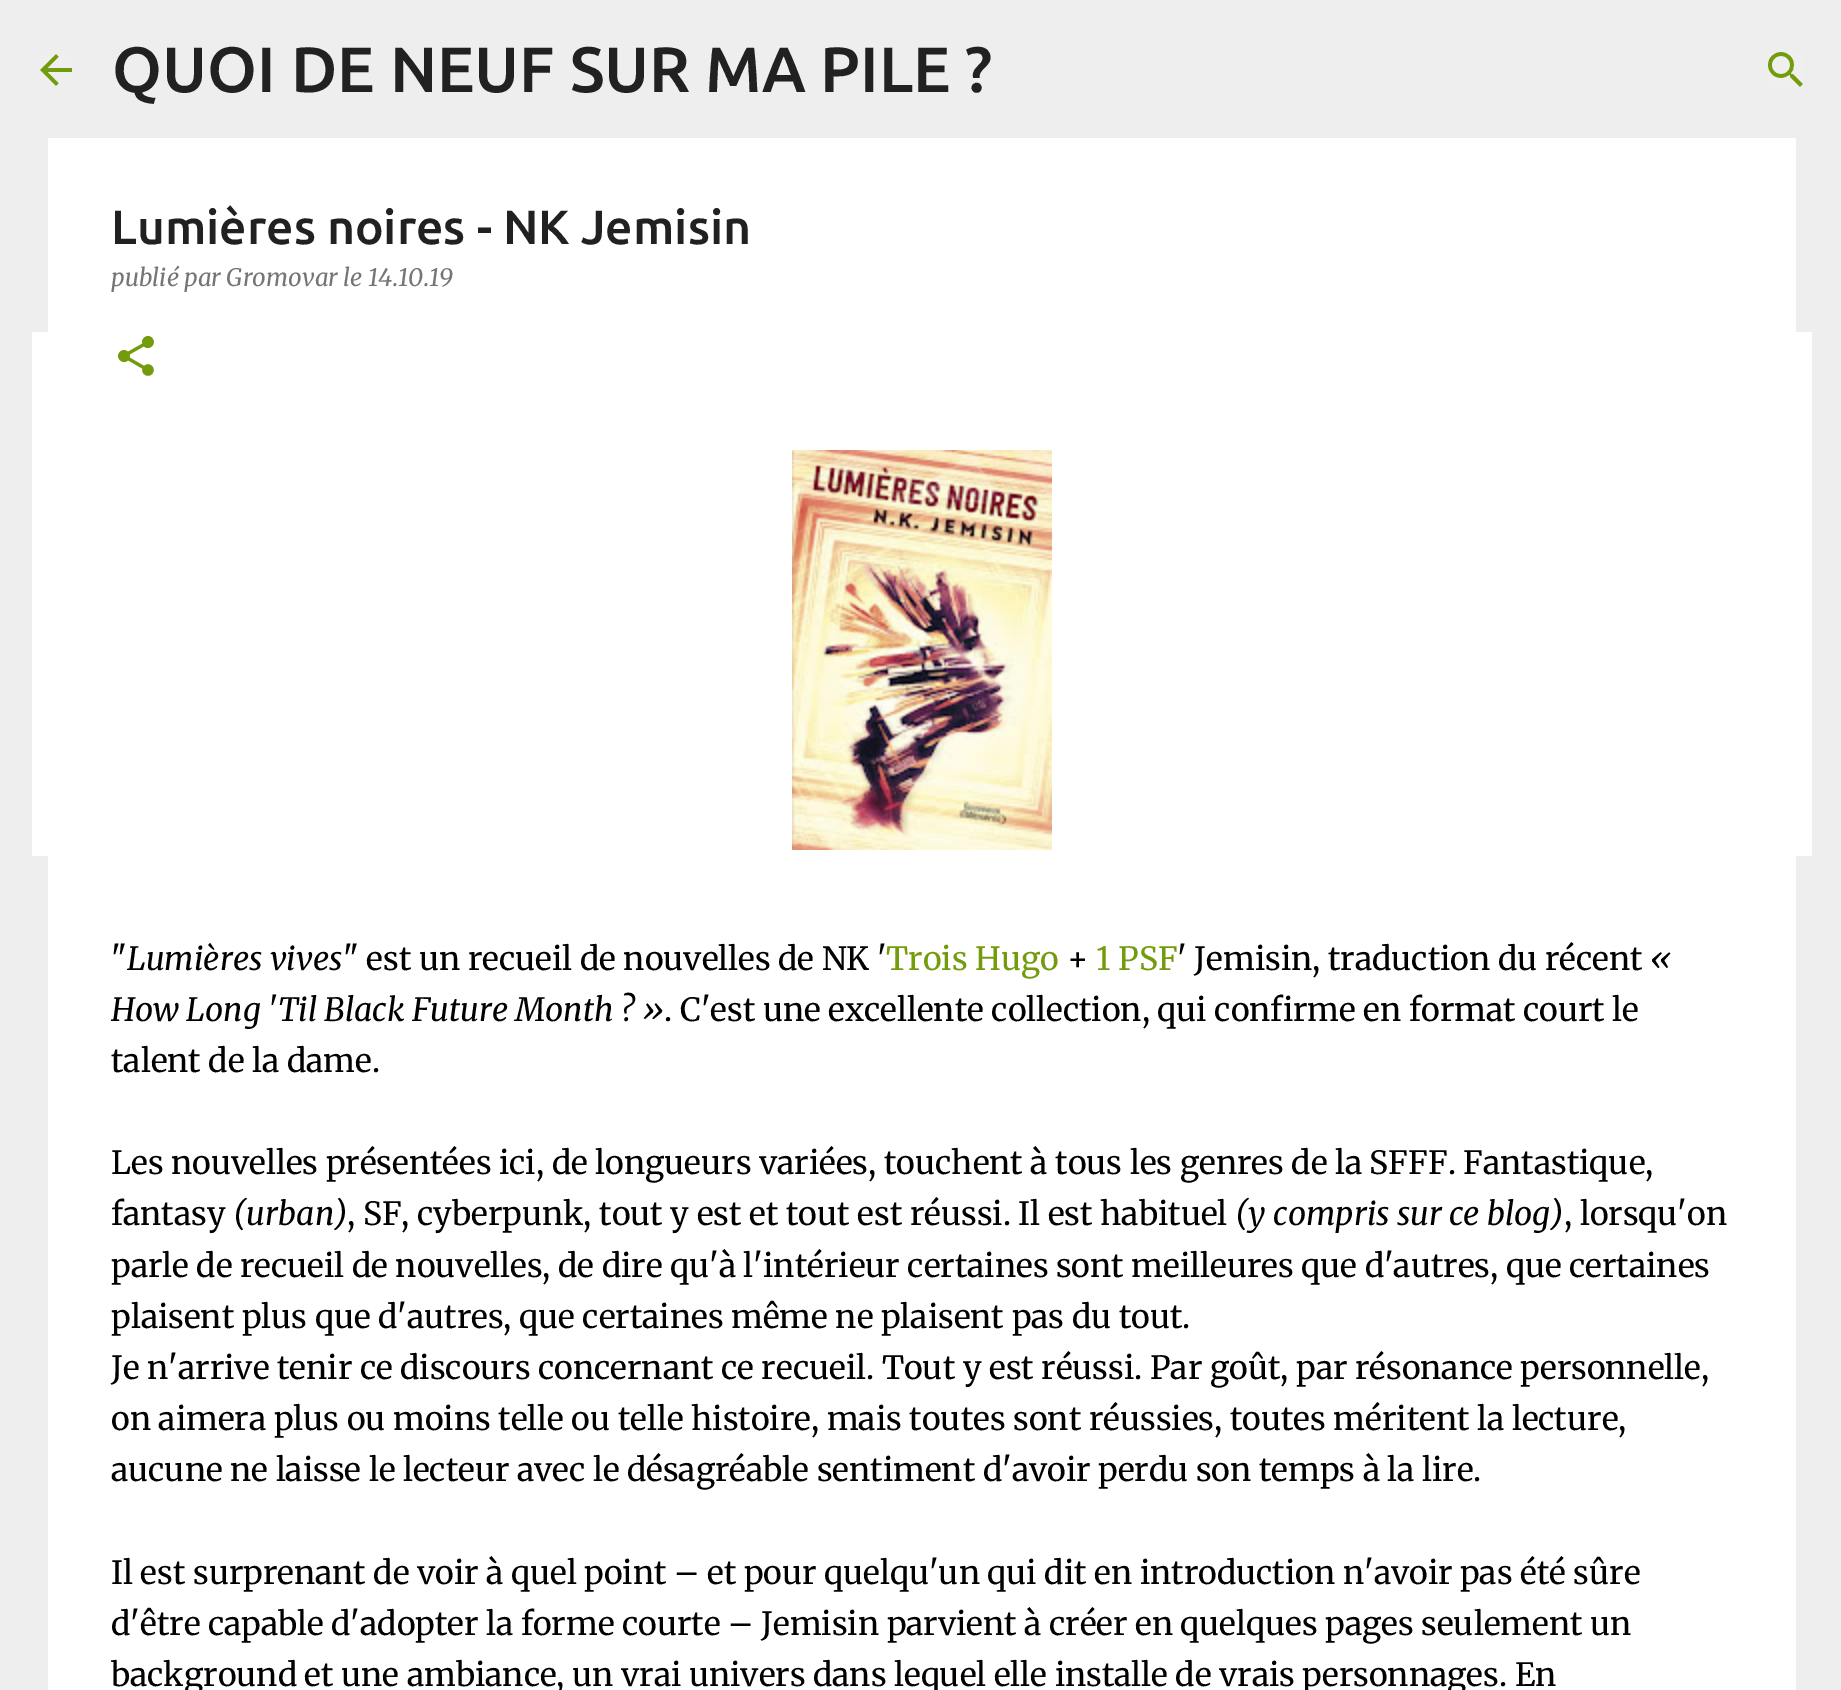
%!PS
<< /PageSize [1841 1690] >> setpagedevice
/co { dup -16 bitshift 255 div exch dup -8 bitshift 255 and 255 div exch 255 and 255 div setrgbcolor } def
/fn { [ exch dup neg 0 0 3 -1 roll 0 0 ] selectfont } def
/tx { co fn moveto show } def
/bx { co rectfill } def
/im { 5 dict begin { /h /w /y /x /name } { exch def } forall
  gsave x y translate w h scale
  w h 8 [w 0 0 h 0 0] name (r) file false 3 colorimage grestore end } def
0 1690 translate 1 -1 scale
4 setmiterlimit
0 0 1841 1690 16#EEEEEE bx
(media/1.raw) 40 54 32 32 im
(media/2.raw) 1768 52 35 35 im
32 332 1780 524 16#FFFFFF bx
48 138 1748 1552 16#FFFFFF bx
(media/3.raw) 118 336 36 40 im
(media/4.raw) 792 450 260 400 im
(QUOI DE NEUF SUR MA PILE ?) 112 92 /Ubuntu-Medium 64 16#212121 tx
(Lumières noires - NK Jemisin) 111 244 /Ubuntu-Medium 48 16#212121 tx
(publié par Gromovar le 14.10.19) 111 286 /Merriweather-Italic 24 16#757575 tx
(") 111 970 /Merriweather-Regular 32 16#000000 tx
(Lumières vives) 127 970 /Merriweather-Italic 32 16#000000 tx
(" est un recueil de nouvelles de NK ') 343 970 /Merriweather-Regular 32 16#000000 tx
(Trois Hugo) 886 970 /Merriweather-Regular 32 16#729C0B tx
(+) 1067 970 /Merriweather-Regular 32 16#000000 tx
(1 PSF) 1096 970 /Merriweather-Regular 32 16#729C0B tx
(' Jemisin, traduction du récent) 1177 970 /Merriweather-Regular 32 16#000000 tx
(«) 1650 970 /Merriweather-Italic 32 16#000000 tx
(How Long 'Til Black Future Month ? ») 111 1021 /Merriweather-Italic 32 16#000000 tx
(. C'est une excellente collection, qui confirme en format court le) 664 1021 /Merriweather-Regular 32 16#000000 tx
(talent de la dame.) 111 1072 /Merriweather-Regular 32 16#000000 tx
(Les nouvelles présentées ici, de longueurs variées, touchent à tous les genres de la SFFF. Fantastique,) 111 1174 /Merriweather-Regular 32 16#000000 tx
(fantasy) 111 1225 /Merriweather-Regular 32 16#000000 tx
(\(urban\)) 233 1225 /Merriweather-Italic 32 16#000000 tx
(, SF, cyberpunk, tout y est et tout est réussi. Il est habituel) 347 1225 /Merriweather-Regular 32 16#000000 tx
(\(y compris sur ce blog\)) 1235 1225 /Merriweather-Italic 32 16#000000 tx
(, lorsqu'on) 1564 1225 /Merriweather-Regular 32 16#000000 tx
(parle de recueil de nouvelles, de dire qu'à l'intérieur certaines sont meilleures que d'autres, que certaines) 111 1277 /Merriweather-Regular 32 16#000000 tx
(plaisent plus que d'autres, que certaines même ne plaisent pas du tout.) 111 1328 /Merriweather-Regular 32 16#000000 tx
(Je n'arrive tenir ce discours concernant ce recueil. Tout y est réussi. Par goût, par résonance personnelle,) 111 1379 /Merriweather-Regular 32 16#000000 tx
(on aimera plus ou moins telle ou telle histoire, mais toutes sont réussies, toutes méritent la lecture,) 111 1430 /Merriweather-Regular 32 16#000000 tx
(aucune ne laisse le lecteur avec le désagréable sentiment d'avoir perdu son temps à la lire.) 111 1481 /Merriweather-Regular 32 16#000000 tx
(Il est surprenant de voir à quel point – et pour quelqu'un qui dit en introduction n'avoir pas été sûre) 111 1584 /Merriweather-Regular 32 16#000000 tx
(d'être capable d'adopter la forme courte – Jemisin parvient à créer en quelques pages seulement un) 111 1635 /Merriweather-Regular 32 16#000000 tx
(background et une ambiance, un vrai univers dans lequel elle installe de vrais personnages. En) 111 1686 /Merriweather-Regular 32 16#000000 tx
showpage
